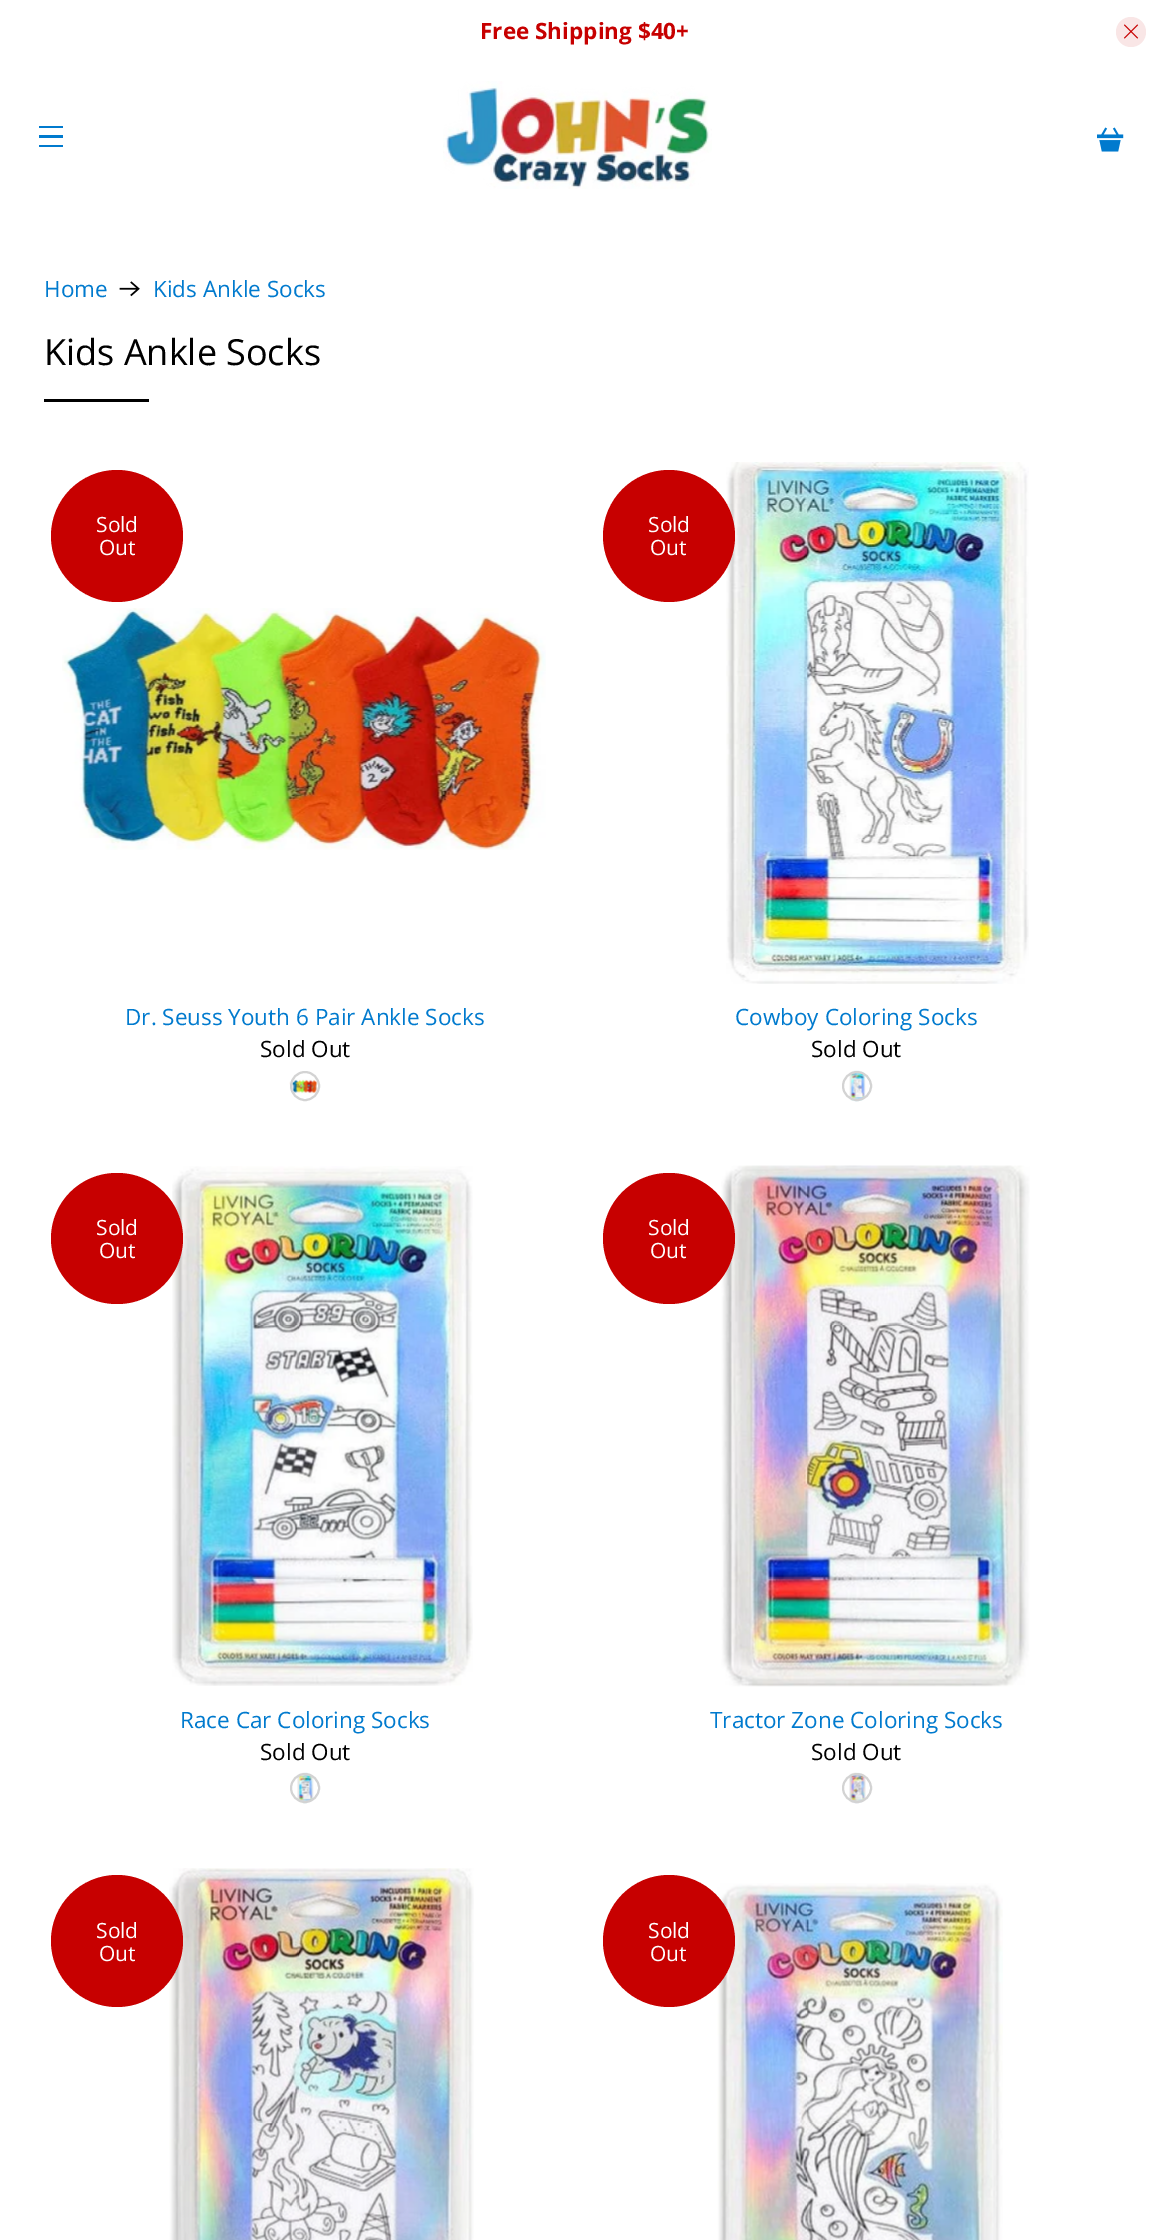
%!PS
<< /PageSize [1160 2240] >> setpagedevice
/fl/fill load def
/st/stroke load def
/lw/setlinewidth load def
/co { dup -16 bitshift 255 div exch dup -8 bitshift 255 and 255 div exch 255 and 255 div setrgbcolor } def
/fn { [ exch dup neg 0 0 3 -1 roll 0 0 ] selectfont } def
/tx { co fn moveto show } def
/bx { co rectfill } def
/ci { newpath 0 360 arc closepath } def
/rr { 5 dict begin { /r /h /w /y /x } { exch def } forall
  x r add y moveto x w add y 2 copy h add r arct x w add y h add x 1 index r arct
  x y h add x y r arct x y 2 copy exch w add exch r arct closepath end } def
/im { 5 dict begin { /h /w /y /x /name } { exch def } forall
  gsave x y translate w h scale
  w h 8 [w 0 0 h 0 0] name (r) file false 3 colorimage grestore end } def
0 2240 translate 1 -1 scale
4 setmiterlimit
0 0 1160 2240 16#FFFFFF bx
16#F9E6E6 co
1131 32 15 ci fl
(media/1.raw) 1124 24 15 15 im
39 126 24 2 16#007ACE bx
39 135 24 3 16#007ACE bx
39 145 24 2 16#007ACE bx
(media/2.raw) 443 81 269 108 im
(media/3.raw) 1097 127 27 25 im
(media/4.raw) 119 281 21 16 im
44 399 105 3 16#000000 bx
16#C70000 co
117 536 66 ci fl
(media/5.raw) 62 608 484 242 im
(media/6.raw) 289 1079 31 15 im
16#D3D3D3 co
2 lw
305 1086 14 ci st
(media/7.raw) 726 462 303 522 im
16#C70000 co
669 536 66 ci fl
(media/8.raw) 849 1070 17 32 im
16#D3D3D3 co
857 1086 14 ci st
(media/9.raw) 172 1166 301 520 im
16#C70000 co
51 1173 132 131 65.5 rr fl
(media/10.raw) 297 1772 17 32 im
16#D3D3D3 co
305 1788 14 ci st
(media/11.raw) 721 1165 309 522 im
16#C70000 co
603 1173 132 131 65.5 rr fl
(media/12.raw) 849 1772 17 32 im
16#D3D3D3 co
857 1788 14 ci st
(media/13.raw) 169 1868 305 372 im
16#C70000 co
117 1941 66 ci fl
(media/14.raw) 717 1883 286 357 im
669 1941 66 ci fl
(Free Shipping $40+) 480 39 /OpenSans-Bold 22.5 16#C70000 tx
(Home) 44 297 /OpenSans-Regular 22.5 16#007ACE tx
(Kids Ankle Socks) 153 297 /OpenSans-Regular 22.5 16#007ACE tx
(Kids Ankle Socks) 44 365 /OpenSans-Regular 36 16#000000 tx
(Sold) 96 532 /OpenSans-Regular 21 16#FFFFFF tx
(Out) 99 555 /OpenSans-Regular 21 16#FFFFFF tx
(Dr. Seuss Youth 6 Pair Ankle Socks) 125 1025 /OpenSans-Regular 22.5 16#007ACE tx
(Sold Out) 260 1057 /OpenSans-Regular 22.5 16#000000 tx
(Sold) 648 532 /OpenSans-Regular 21 16#FFFFFF tx
(Out) 650 555 /OpenSans-Regular 21 16#FFFFFF tx
(Cowboy Coloring Socks) 735 1025 /OpenSans-Regular 22.5 16#007ACE tx
(Sold Out) 811 1057 /OpenSans-Regular 22.5 16#000000 tx
(Sold) 96 1235 /OpenSans-Regular 21 16#FFFFFF tx
(Out) 99 1258 /OpenSans-Regular 21 16#FFFFFF tx
(Race Car Coloring Socks) 180 1728 /OpenSans-Regular 22.5 16#007ACE tx
(Sold Out) 260 1760 /OpenSans-Regular 22.5 16#000000 tx
(Sold) 648 1235 /OpenSans-Regular 21 16#FFFFFF tx
(Out) 650 1258 /OpenSans-Regular 21 16#FFFFFF tx
(Tractor Zone Coloring Socks) 710 1728 /OpenSans-Regular 22.5 16#007ACE tx
(Sold Out) 811 1760 /OpenSans-Regular 22.5 16#000000 tx
(Sold) 96 1938 /OpenSans-Regular 21 16#FFFFFF tx
(Out) 99 1961 /OpenSans-Regular 21 16#FFFFFF tx
(Sold) 648 1938 /OpenSans-Regular 21 16#FFFFFF tx
(Out) 650 1961 /OpenSans-Regular 21 16#FFFFFF tx
showpage
